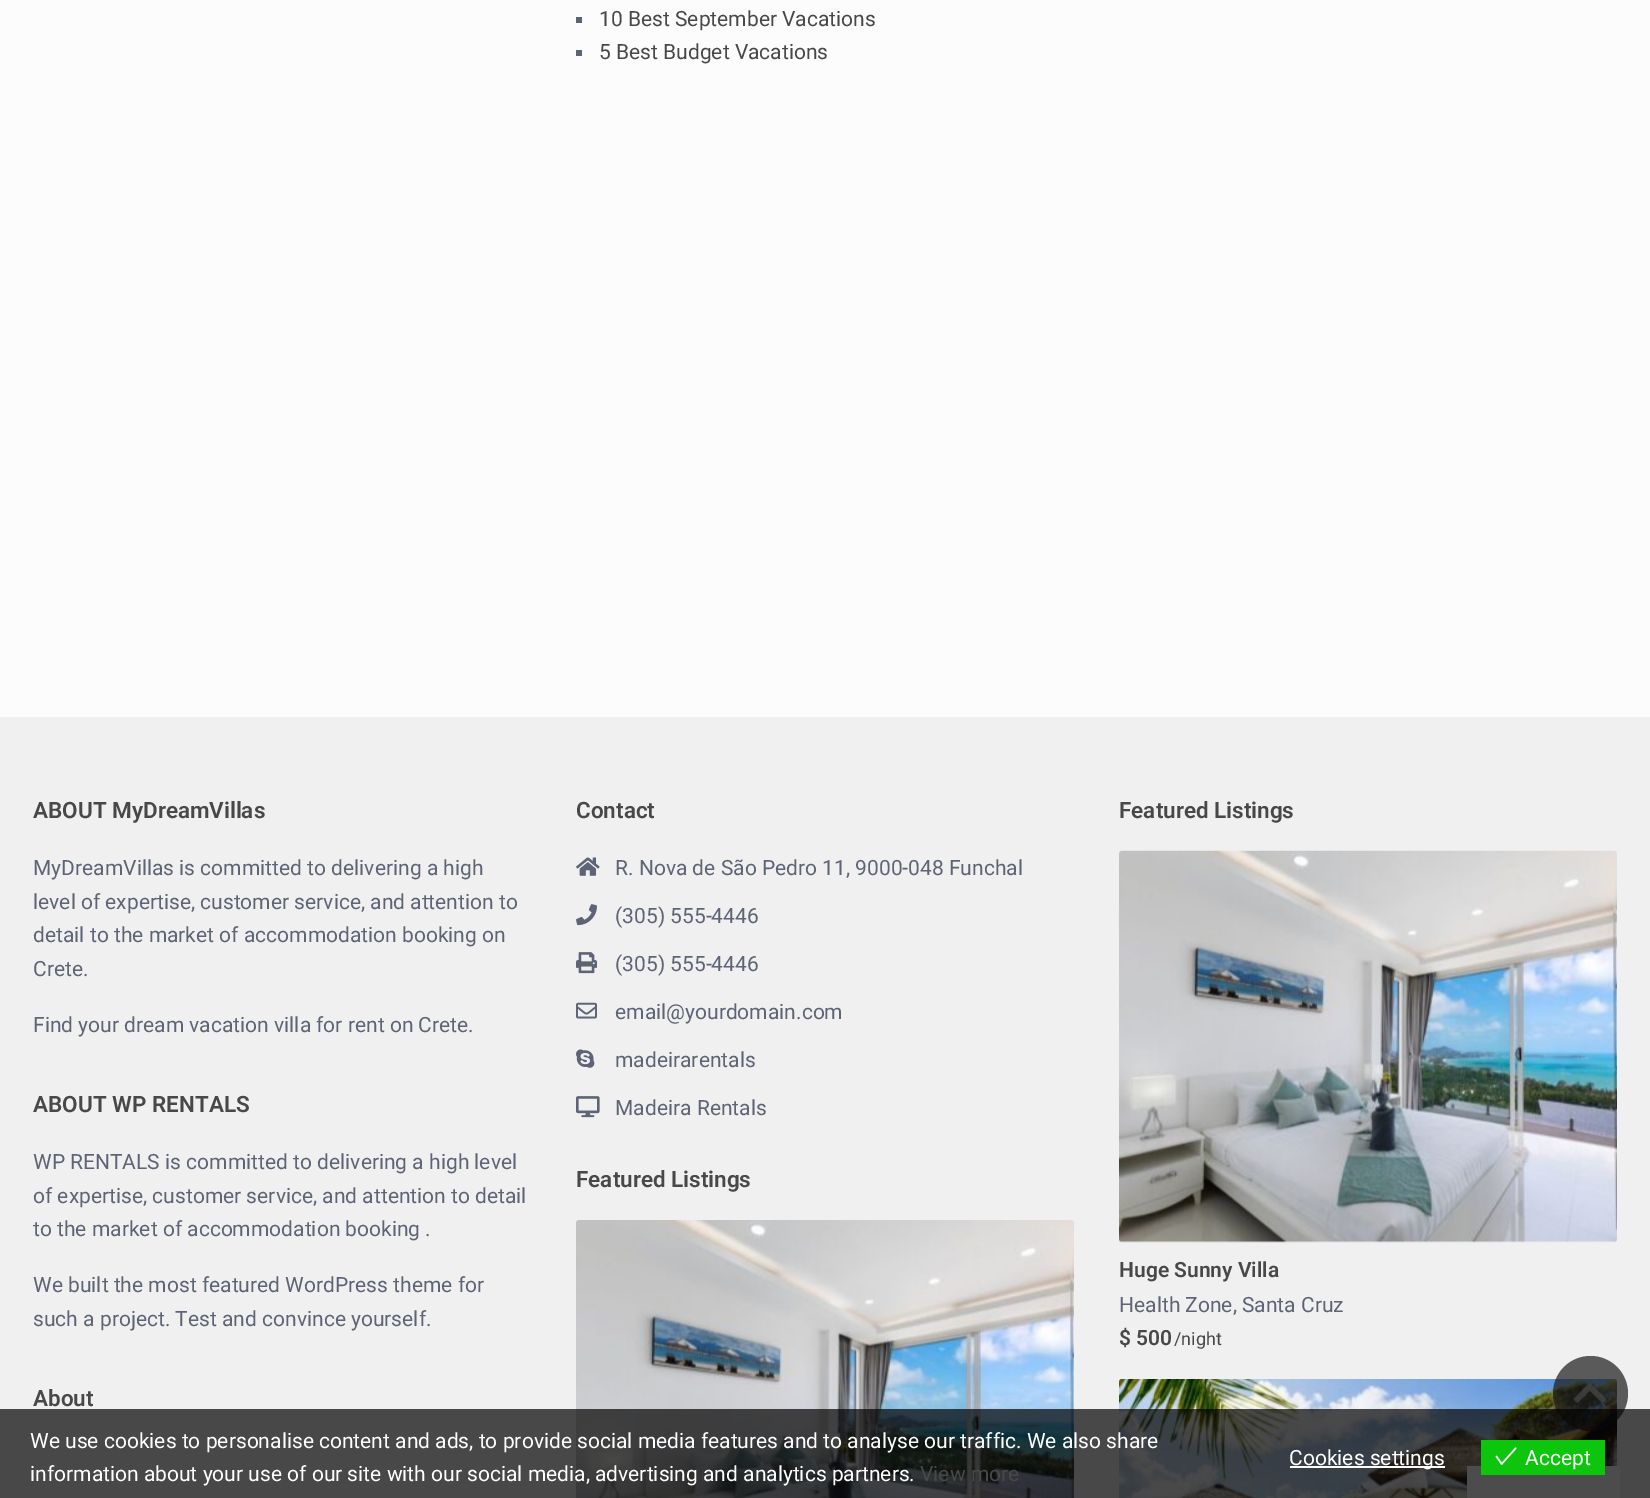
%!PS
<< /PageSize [1650 1498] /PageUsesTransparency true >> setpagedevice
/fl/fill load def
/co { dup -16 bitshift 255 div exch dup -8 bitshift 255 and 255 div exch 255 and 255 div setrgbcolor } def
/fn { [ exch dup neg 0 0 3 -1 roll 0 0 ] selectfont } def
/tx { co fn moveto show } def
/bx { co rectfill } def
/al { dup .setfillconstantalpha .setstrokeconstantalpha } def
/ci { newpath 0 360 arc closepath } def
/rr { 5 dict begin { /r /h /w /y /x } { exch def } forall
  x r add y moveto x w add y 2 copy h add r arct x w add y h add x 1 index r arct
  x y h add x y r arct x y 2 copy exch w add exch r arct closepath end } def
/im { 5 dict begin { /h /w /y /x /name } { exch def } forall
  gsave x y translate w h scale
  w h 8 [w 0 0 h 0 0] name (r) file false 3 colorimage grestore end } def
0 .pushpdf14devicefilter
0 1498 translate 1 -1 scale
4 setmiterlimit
0 0 1650 1498 16#FCFCFC bx
576 17 6 6 16#5D6475 bx
576 50 6 6 16#5D6475 bx
0 717 1650 781 16#F0F0F0 bx
(media/1.raw) 576 857 24 19 im
(media/2.raw) 576 904 21 22 im
(media/3.raw) 576 952 21 22 im
(media/4.raw) 576 1002 21 17 im
(media/5.raw) 576 1049 19 19 im
(media/6.raw) 576 1096 24 22 im
(media/7.raw) 576 1220 498 278 im
16#F7F7F7 co
1119 851 498 391 3 rr fl
(media/8.raw) 1119 850 498 393 im
(media/9.raw) 1119 1379 498 119 im
0.7 al
16#1A1A1A co
1590.5 1393.5 37.5 ci fl
1 al
(media/10.raw) 1574 1383 32 20 im
1467 1466 153 32 16#FFFFFF bx
0.7 al
0 1409 1650 89 16#000000 bx
1 al
1290 1466 155 2 16#FFFFFF bx
1481 1440 124 35 16#0EC50E bx
(media/11.raw) 1495 1447 22 18 im
(10 Best September Vacations) 599 26 /Roboto-Regular 21 16#484848 tx
(5 Best Budget Vacations) 599 59 /Roboto-Regular 21 16#484848 tx
(ABOUT MyDreamVillas) 33 818 /Roboto-SemiBold 22.5 16#484848 tx
(MyDreamVillas is committed to delivering a high) 33 875 /Roboto-Regular 21 16#5D6475 tx
(level of expertise, customer service, and attention to) 33 909 /Roboto-Regular 21 16#5D6475 tx
(detail to the market of accommodation booking on) 33 942 /Roboto-Regular 21 16#5D6475 tx
(Crete.) 33 976 /Roboto-Regular 21 16#5D6475 tx
(Find your dream vacation villa for rent on Crete.) 33 1032 /Roboto-Regular 21 16#5D6475 tx
(ABOUT WP RENTALS) 33 1112 /Roboto-SemiBold 22.5 16#484848 tx
(WP RENTALS is committed to delivering a high level) 33 1169 /Roboto-Regular 21 16#5D6475 tx
(of expertise, customer service, and attention to detail) 33 1203 /Roboto-Regular 21 16#5D6475 tx
(to the market of accommodation booking .) 33 1236 /Roboto-Regular 21 16#5D6475 tx
(We built the most featured WordPress theme for) 33 1292 /Roboto-Regular 21 16#5D6475 tx
(such a project. Test and convince yourself.) 33 1326 /Roboto-Regular 21 16#5D6475 tx
(About) 33 1406 /Roboto-SemiBold 22.5 16#484848 tx
(Contact) 576 818 /Roboto-SemiBold 22.5 16#484848 tx
(R. Nova de São Pedro 11, 9000-048 Funchal) 615 875 /Roboto-Regular 21 16#5D6475 tx
(\(305\) 555-4446) 615 923 /Roboto-Regular 21 16#5D6475 tx
(\(305\) 555-4446) 615 971 /Roboto-Regular 21 16#5D6475 tx
(email@yourdomain.com) 615 1019 /Roboto-Regular 21 16#5D6475 tx
(madeirarentals) 615 1067 /Roboto-Regular 21 16#5D6475 tx
(Madeira Rentals) 615 1115 /Roboto-Regular 21 16#5D6475 tx
(Featured Listings) 576 1187 /Roboto-SemiBold 22.5 16#484848 tx
(Featured Listings) 1119 818 /Roboto-SemiBold 22.5 16#484848 tx
(Huge Sunny Villa) 1119 1277 /Roboto-SemiBold 21 16#484848 tx
(Health Zone, Santa Cruz) 1119 1312 /Roboto-Regular 21 16#5D6475 tx
($ 500) 1119 1345 /Roboto-SemiBold 21 16#484848 tx
(/night) 1174 1345 /Roboto-Regular 18 16#484848 tx
(We use cookies to personalise content and ads, to provide social media features and to analyse our traffic. We also share) 30 1448 /Roboto-Regular 21 16#FFFFFF tx
(information about your use of our site with our social media, advertising and analytics partners.) 30 1481 /Roboto-Regular 21 16#FFFFFF tx
(View more) 920 1481 /Roboto-Regular 21 16#484848 tx
(Cookies settings) 1289 1465 /Roboto-Regular 21 16#FFFFFF tx
(Accept) 1525 1465 /Roboto-Regular 21 16#FFFFFF tx
.poppdf14devicefilter showpage
